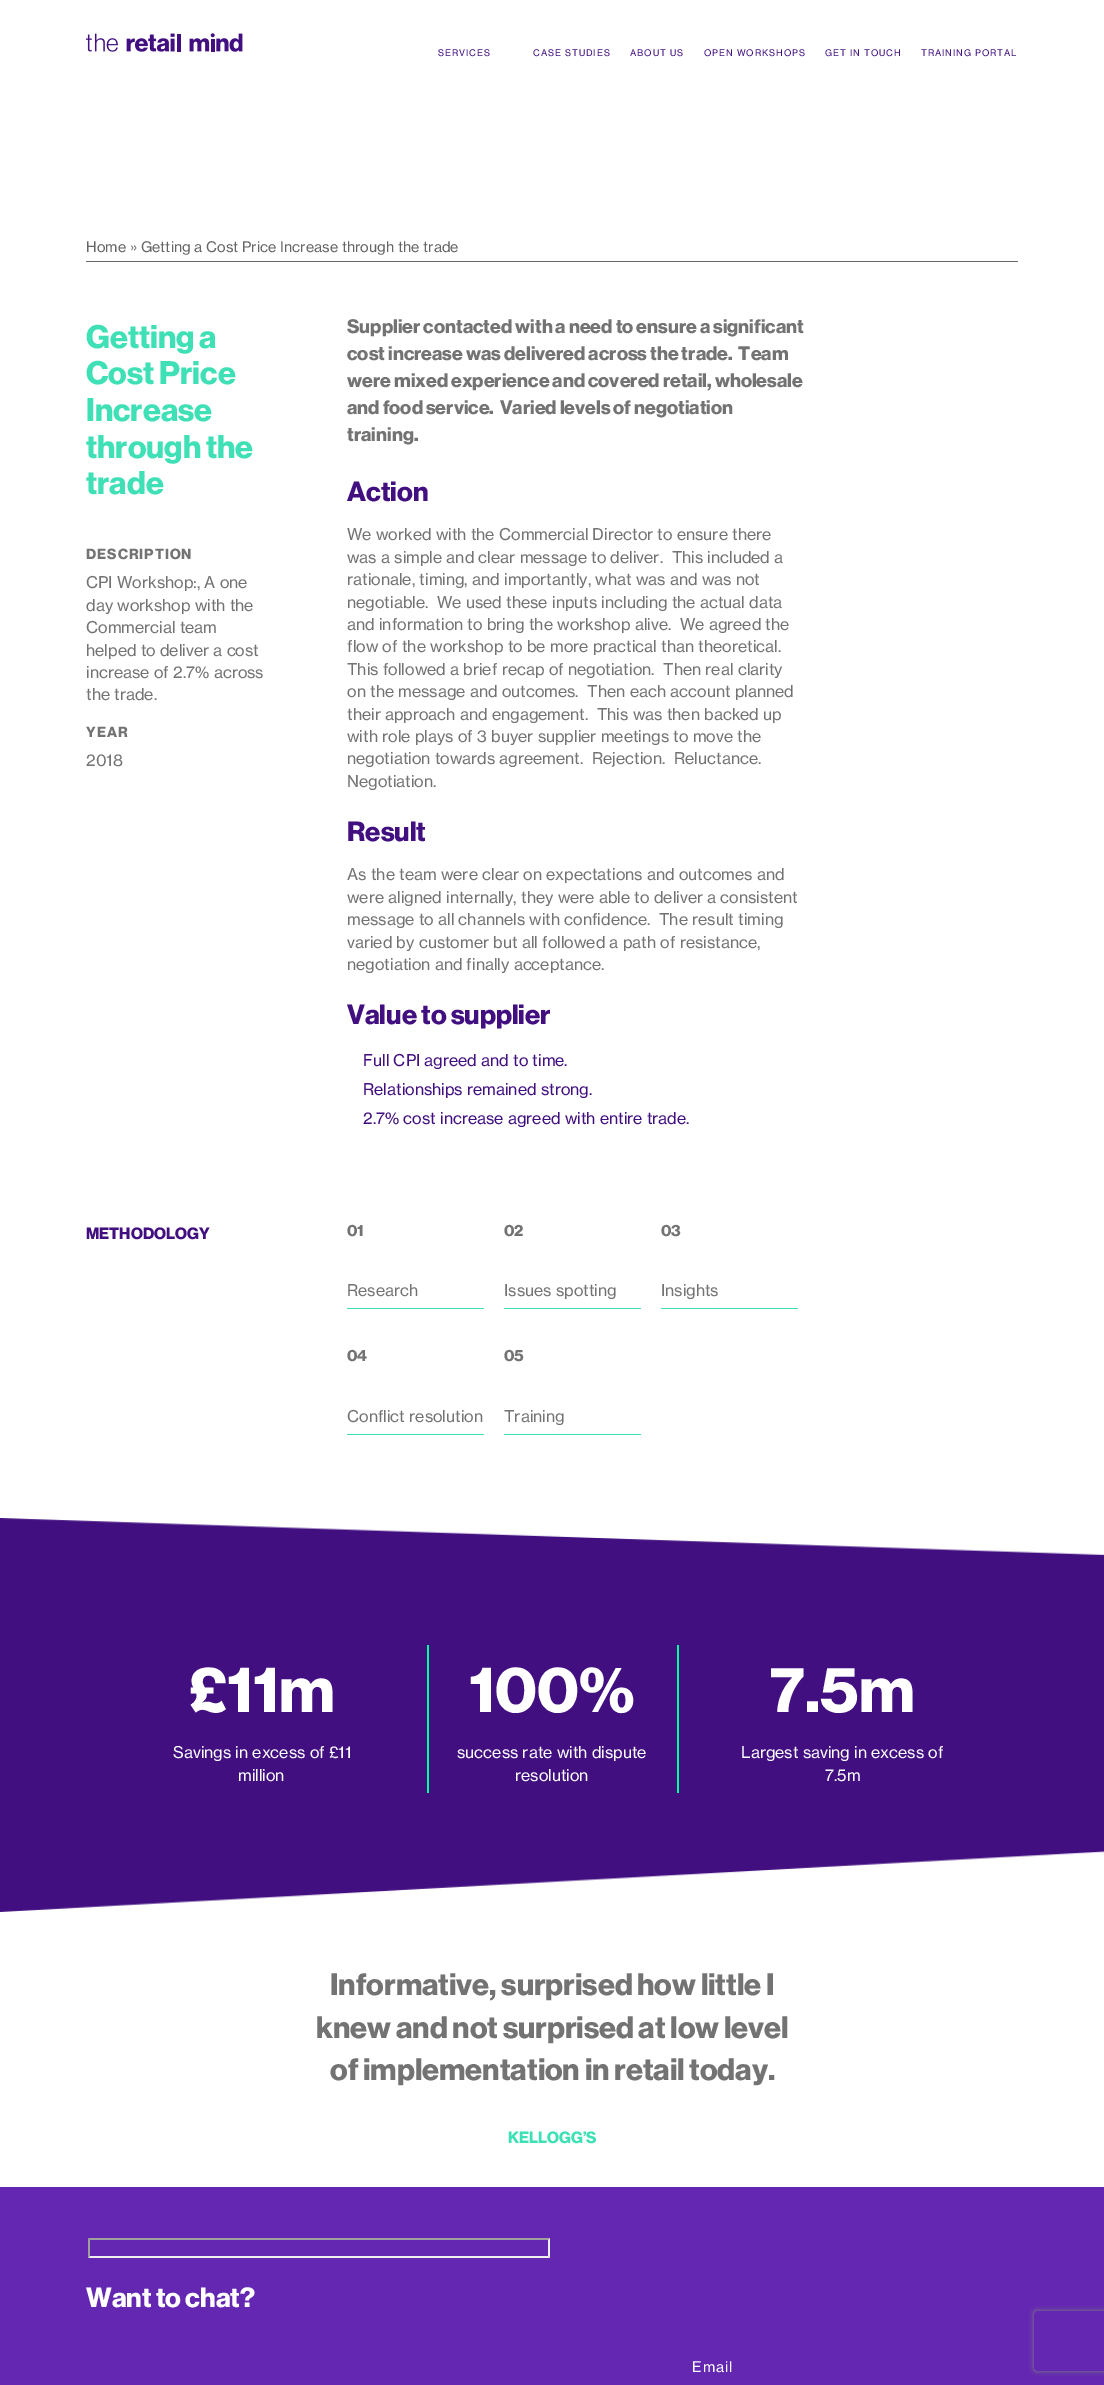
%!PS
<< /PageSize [1104 2385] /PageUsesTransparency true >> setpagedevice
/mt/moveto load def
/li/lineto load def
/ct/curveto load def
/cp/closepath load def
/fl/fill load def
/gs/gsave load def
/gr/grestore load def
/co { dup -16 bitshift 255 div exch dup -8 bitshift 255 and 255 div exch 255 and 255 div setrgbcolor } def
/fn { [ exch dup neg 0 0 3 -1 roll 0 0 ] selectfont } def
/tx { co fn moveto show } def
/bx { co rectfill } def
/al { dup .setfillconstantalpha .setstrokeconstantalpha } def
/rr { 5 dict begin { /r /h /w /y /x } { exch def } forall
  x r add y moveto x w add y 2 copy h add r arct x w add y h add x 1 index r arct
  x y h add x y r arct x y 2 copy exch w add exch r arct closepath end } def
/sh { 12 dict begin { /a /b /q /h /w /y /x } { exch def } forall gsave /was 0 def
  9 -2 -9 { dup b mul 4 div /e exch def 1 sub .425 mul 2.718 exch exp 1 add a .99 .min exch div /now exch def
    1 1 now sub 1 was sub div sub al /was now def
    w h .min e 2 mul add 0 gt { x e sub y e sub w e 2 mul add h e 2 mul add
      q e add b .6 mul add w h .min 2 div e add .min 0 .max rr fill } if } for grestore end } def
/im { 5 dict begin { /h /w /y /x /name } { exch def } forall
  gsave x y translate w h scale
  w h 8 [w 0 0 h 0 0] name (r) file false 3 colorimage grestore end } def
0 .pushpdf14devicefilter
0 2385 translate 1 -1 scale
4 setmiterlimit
0 0 1104 2385 16#FFFFFF bx
(media/1.raw) 86 33 157 19 im
86 261 932 1 16#666666 bx
347 1308 137 1 16#3FE0B5 bx
504 1308 137 1 16#3FE0B5 bx
661 1308 137 1 16#3FE0B5 bx
347 1434 137 1 16#3FE0B5 bx
504 1434 137 1 16#3FE0B5 bx
(media/2.raw) 0 1518 1104 394 im
427 1645 2 148 16#00FF98 bx
677 1645 2 148 16#00FF98 bx
0 2187 1104 198 16#6327B1 bx
16#9F9F9F co
88 2238 mt 550 2238 li 548 2240 li 90 2240 li cp fl
16#EFEFEF co
550 2238 mt 550 2258 li 548 2256 li 548 2240 li cp fl
550 2258 mt 88 2258 li 90 2256 li 548 2256 li cp fl
16#9F9F9F co
88 2258 mt 88 2238 li 90 2240 li 90 2256 li cp fl
gs
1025 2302 mt 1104 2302 li 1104 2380 li 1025 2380 li cp 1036 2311 mt 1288 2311 li 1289 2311 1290 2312 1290 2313 ct 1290 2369 li 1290 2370 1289 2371 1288 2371 ct 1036 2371 li 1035 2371 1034 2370 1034 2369 ct 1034 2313 li 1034 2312 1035 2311 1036 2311 ct cp eoclip newpath
16#808080 co
1034 2311 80 60 2 2.5 1 sh
gr
/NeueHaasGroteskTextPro-Regular 9 fn
16#410F80 co
438 56 mt .9 0 (SERVICES) ashow
533 56 mt .9 0 (CASE STUDIES) ashow
630 56 mt .9 0 (ABOUT US) ashow
704 56 mt .9 0 (OPEN WORKSHOPS) ashow
825 56 mt .9 0 (GET IN TOUCH) ashow
921 56 mt .9 0 (TRAINING PORTAL) ashow
(Home » Getting a Cost Price Increase through the trade) 86 252 /NeueHaasGroteskTextPro-Regular 14.4 16#666666 tx
(Getting a) 86 348 /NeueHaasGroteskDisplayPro-Bold 32 16#3FE0B5 tx
(Cost Price) 86 384 /NeueHaasGroteskDisplayPro-Bold 32 16#3FE0B5 tx
(Increase) 86 421 /NeueHaasGroteskDisplayPro-Bold 32 16#3FE0B5 tx
(through the) 86 458 /NeueHaasGroteskDisplayPro-Bold 32 16#3FE0B5 tx
(trade) 86 494 /NeueHaasGroteskDisplayPro-Bold 32 16#3FE0B5 tx
/NeueHaasGroteskDisplayPro-Bold 14.4 fn
16#737373 co
86 559 mt 1 0 (DESCRIPTION) ashow
(CPI Workshop:, A one) 86 588 /NeueHaasGroteskTextPro-Regular 16 16#737373 tx
(day workshop with the) 86 611 /NeueHaasGroteskTextPro-Regular 16 16#737373 tx
(Commercial team) 86 633 /NeueHaasGroteskTextPro-Regular 16 16#737373 tx
(helped to deliver a cost) 86 656 /NeueHaasGroteskTextPro-Regular 16 16#737373 tx
(increase of 2.7% across) 86 678 /NeueHaasGroteskTextPro-Regular 16 16#737373 tx
(the trade.) 86 700 /NeueHaasGroteskTextPro-Regular 16 16#737373 tx
/NeueHaasGroteskDisplayPro-Bold 14.4 fn
86 737 mt 1 0 (YEAR) ashow
(2018) 86 766 /NeueHaasGroteskTextPro-Regular 16 16#737373 tx
(Supplier contacted with a need to ensure a significant) 347 333 /NeueHaasGroteskDisplayPro-Bold 19.2 16#737373 tx
(cost increase was delivered across the trade.  Team) 347 360 /NeueHaasGroteskDisplayPro-Bold 19.2 16#737373 tx
(were mixed experience and covered retail, wholesale) 347 387 /NeueHaasGroteskDisplayPro-Bold 19.2 16#737373 tx
(and food service.  Varied levels of negotiation) 347 414 /NeueHaasGroteskDisplayPro-Bold 19.2 16#737373 tx
(training.) 347 441 /NeueHaasGroteskDisplayPro-Bold 19.2 16#737373 tx
(Action) 347 501 /NeueHaasGroteskDisplayPro-Bold 27.25 16#410F80 tx
(We worked with the Commercial Director to ensure there) 347 540 /NeueHaasGroteskTextPro-Regular 16 16#737373 tx
(was a simple and clear message to deliver.  This included a) 347 563 /NeueHaasGroteskTextPro-Regular 16 16#737373 tx
(rationale, timing, and importantly, what was and was not) 347 585 /NeueHaasGroteskTextPro-Regular 16 16#737373 tx
(negotiable.  We used these inputs including the actual data) 347 608 /NeueHaasGroteskTextPro-Regular 16 16#737373 tx
(and information to bring the workshop alive.  We agreed the) 347 630 /NeueHaasGroteskTextPro-Regular 16 16#737373 tx
(flow of the workshop to be more practical than theoretical.) 347 652 /NeueHaasGroteskTextPro-Regular 16 16#737373 tx
(This followed a brief recap of negotiation.  Then real clarity) 347 675 /NeueHaasGroteskTextPro-Regular 16 16#737373 tx
(on the message and outcomes.  Then each account planned) 347 697 /NeueHaasGroteskTextPro-Regular 16 16#737373 tx
(their approach and engagement.  This was then backed up) 347 720 /NeueHaasGroteskTextPro-Regular 16 16#737373 tx
(with role plays of 3 buyer supplier meetings to move the) 347 742 /NeueHaasGroteskTextPro-Regular 16 16#737373 tx
(negotiation towards agreement.  Rejection.  Reluctance.) 347 764 /NeueHaasGroteskTextPro-Regular 16 16#737373 tx
(Negotiation.) 347 787 /NeueHaasGroteskTextPro-Regular 16 16#737373 tx
(Result) 347 841 /NeueHaasGroteskDisplayPro-Bold 27.25 16#410F80 tx
(As the team were clear on expectations and outcomes and) 347 880 /NeueHaasGroteskTextPro-Regular 16 16#737373 tx
(were aligned internally, they were able to deliver a consistent) 347 903 /NeueHaasGroteskTextPro-Regular 16 16#737373 tx
(message to all channels with confidence.  The result timing) 347 925 /NeueHaasGroteskTextPro-Regular 16 16#737373 tx
(varied by customer but all followed a path of resistance,) 347 948 /NeueHaasGroteskTextPro-Regular 16 16#737373 tx
(negotiation and finally acceptance.) 347 970 /NeueHaasGroteskTextPro-Regular 16 16#737373 tx
(Value to supplier) 347 1024 /NeueHaasGroteskDisplayPro-Bold 27.25 16#410F80 tx
(Full CPI agreed and to time.) 363 1066 /NeueHaasGroteskTextPro-Regular 16 16#410F80 tx
(Relationships remained strong.) 363 1095 /NeueHaasGroteskTextPro-Regular 16 16#410F80 tx
(2.7% cost increase agreed with entire trade.) 363 1124 /NeueHaasGroteskTextPro-Regular 16 16#410F80 tx
(METHODOLOGY) 86 1239 /NeueHaasGroteskDisplayPro-Bold 16 16#410F80 tx
(01) 347 1236 /NeueHaasGroteskDisplayPro-Bold 16 16#737373 tx
(Research) 347 1296 /NeueHaasGroteskTextPro-Regular 16 16#737373 tx
(02) 504 1236 /NeueHaasGroteskDisplayPro-Bold 16 16#737373 tx
(Issues spotting) 504 1296 /NeueHaasGroteskTextPro-Regular 16 16#737373 tx
(03) 661 1236 /NeueHaasGroteskDisplayPro-Bold 16 16#737373 tx
(Insights) 661 1296 /NeueHaasGroteskTextPro-Regular 16 16#737373 tx
(04) 347 1361 /NeueHaasGroteskDisplayPro-Bold 16 16#737373 tx
(Conflict resolution) 347 1422 /NeueHaasGroteskTextPro-Regular 16 16#737373 tx
(05) 504 1361 /NeueHaasGroteskDisplayPro-Bold 16 16#737373 tx
(Training) 504 1422 /NeueHaasGroteskTextPro-Regular 16 16#737373 tx
(£11m) 189 1712 /NeueHaasGroteskDisplayPro-Bold 64 16#FFFFFF tx
(Savings in excess of £11) 173 1758 /NeueHaasGroteskTextPro-Regular 16 16#FFFFFF tx
(million) 238 1781 /NeueHaasGroteskTextPro-Regular 16 16#FFFFFF tx
(100%) 469 1712 /NeueHaasGroteskDisplayPro-Bold 64 16#FFFFFF tx
(success rate with dispute) 457 1758 /NeueHaasGroteskTextPro-Regular 16 16#FFFFFF tx
(resolution) 515 1781 /NeueHaasGroteskTextPro-Regular 16 16#FFFFFF tx
(7.5m) 770 1712 /NeueHaasGroteskDisplayPro-Bold 64 16#FFFFFF tx
(Largest saving in excess of) 741 1758 /NeueHaasGroteskTextPro-Regular 16 16#FFFFFF tx
(7.5m) 825 1781 /NeueHaasGroteskTextPro-Regular 16 16#FFFFFF tx
(Informative, surprised how little I) 330 1995 /NeueHaasGroteskDisplayPro-Bold 30.4 16#737373 tx
(knew and not surprised at low level) 316 2038 /NeueHaasGroteskDisplayPro-Bold 30.4 16#737373 tx
(of implementation in retail today.) 330 2080 /NeueHaasGroteskDisplayPro-Bold 30.4 16#737373 tx
(KELLOGG’S) 508 2143 /NeueHaasGroteskDisplayPro-Bold 16 16#3FE0B5 tx
(Want to chat?) 86 2307 /NeueHaasGroteskDisplayPro-Bold 27.25 16#FFFFFF tx
/NeueHaasGroteskTextPro-Regular 14.4 fn
692 2372 mt 1 0 (Email) ashow
.poppdf14devicefilter showpage
